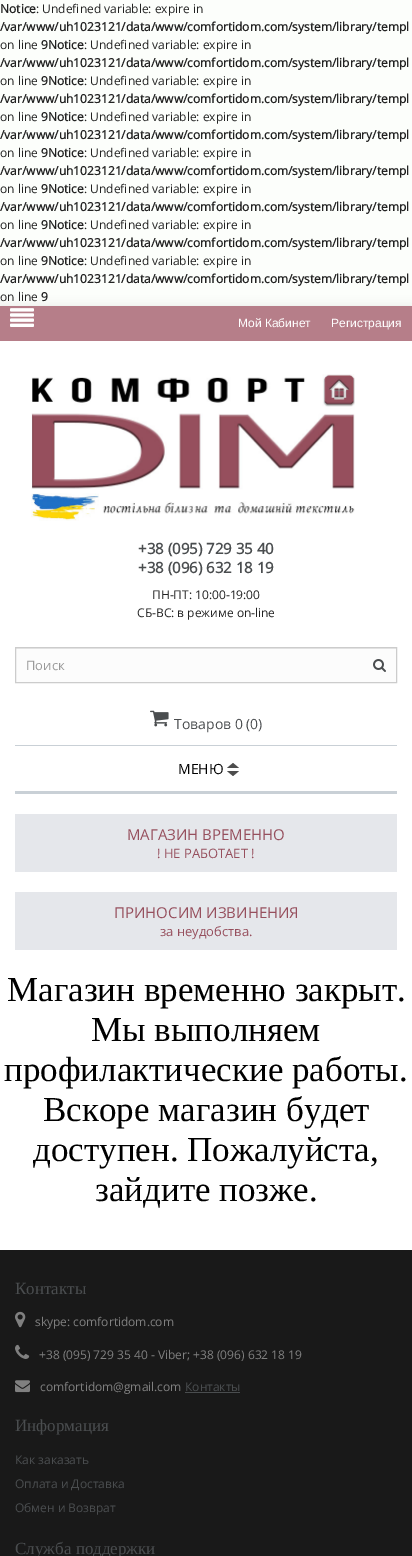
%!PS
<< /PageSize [412 1556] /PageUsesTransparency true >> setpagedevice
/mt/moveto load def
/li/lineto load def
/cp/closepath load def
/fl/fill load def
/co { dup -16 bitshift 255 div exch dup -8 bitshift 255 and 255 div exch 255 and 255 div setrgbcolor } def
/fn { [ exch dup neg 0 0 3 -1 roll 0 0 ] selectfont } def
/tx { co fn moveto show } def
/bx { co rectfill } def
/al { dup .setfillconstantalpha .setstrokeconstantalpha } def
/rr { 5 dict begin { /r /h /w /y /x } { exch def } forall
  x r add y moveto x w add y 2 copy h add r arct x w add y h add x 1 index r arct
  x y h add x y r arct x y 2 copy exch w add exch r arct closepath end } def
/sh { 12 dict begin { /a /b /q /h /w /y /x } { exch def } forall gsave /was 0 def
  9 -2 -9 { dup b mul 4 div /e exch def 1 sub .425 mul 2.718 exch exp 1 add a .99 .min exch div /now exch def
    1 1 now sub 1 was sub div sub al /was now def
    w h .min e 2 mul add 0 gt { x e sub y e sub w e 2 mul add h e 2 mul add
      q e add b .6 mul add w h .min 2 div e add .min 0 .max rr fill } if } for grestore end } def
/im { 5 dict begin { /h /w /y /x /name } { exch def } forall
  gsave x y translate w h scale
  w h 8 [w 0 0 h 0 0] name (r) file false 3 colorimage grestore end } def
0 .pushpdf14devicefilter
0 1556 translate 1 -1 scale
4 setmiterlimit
0 0 412 1556 16#FCFEFB bx
16#000000 co
0 306 412 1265 0 5 .08 sh
0 341 412 909 16#FFFFFF bx
0 306 412 35 16#B67E89 bx
(media/1.raw) 10 308 24 19 im
(media/2.raw) 31 374 324 147 im
16 649 380 33 16#FCFCFC bx
16 648 380 1 16#E9E9E9 bx
16#CCCCCC co
15.5 647.5 381 35 rectstroke
(media/3.raw) 373 659 13 13 im
(media/4.raw) 150 710 19 17 im
15 745 382 1 16#C9D0D6 bx
15 791 382 3 16#C9D0D6 bx
16#4D4D4D co
239 768 mt 227 768 li 233 763 li cp 227 771 mt 239 771 li 233 776 li cp fl
15 814 382 58 16#E5E7EB bx
15 892 382 58 16#E5E7EB bx
0 1250 412 306 16#191919 bx
(media/5.raw) 15 1311 11 17 im
(media/6.raw) 15 1344 15 15 im
(media/7.raw) 15 1380 15 13 im
185 1392 55 1 16#4A4D4F bx
(Notice) 0 13 /OpenSans-Bold 12 16#222222 tx
(: Undefined variable: expire in) 36 13 /OpenSans-Regular 12 16#222222 tx
(/var/www/uh1023121/data/www/comfortidom.com/system/library/templ) 0 31 /OpenSans-Bold 12 16#222222 tx
(on line) 0 49 /OpenSans-Regular 12 16#222222 tx
(9Notice) 41 49 /OpenSans-Bold 12 16#222222 tx
(: Undefined variable: expire in) 84 49 /OpenSans-Regular 12 16#222222 tx
(/var/www/uh1023121/data/www/comfortidom.com/system/library/templ) 0 67 /OpenSans-Bold 12 16#222222 tx
(on line) 0 85 /OpenSans-Regular 12 16#222222 tx
(9Notice) 41 85 /OpenSans-Bold 12 16#222222 tx
(: Undefined variable: expire in) 84 85 /OpenSans-Regular 12 16#222222 tx
(/var/www/uh1023121/data/www/comfortidom.com/system/library/templ) 0 103 /OpenSans-Bold 12 16#222222 tx
(on line) 0 121 /OpenSans-Regular 12 16#222222 tx
(9Notice) 41 121 /OpenSans-Bold 12 16#222222 tx
(: Undefined variable: expire in) 84 121 /OpenSans-Regular 12 16#222222 tx
(/var/www/uh1023121/data/www/comfortidom.com/system/library/templ) 0 139 /OpenSans-Bold 12 16#222222 tx
(on line) 0 157 /OpenSans-Regular 12 16#222222 tx
(9Notice) 41 157 /OpenSans-Bold 12 16#222222 tx
(: Undefined variable: expire in) 84 157 /OpenSans-Regular 12 16#222222 tx
(/var/www/uh1023121/data/www/comfortidom.com/system/library/templ) 0 175 /OpenSans-Bold 12 16#222222 tx
(on line) 0 193 /OpenSans-Regular 12 16#222222 tx
(9Notice) 41 193 /OpenSans-Bold 12 16#222222 tx
(: Undefined variable: expire in) 84 193 /OpenSans-Regular 12 16#222222 tx
(/var/www/uh1023121/data/www/comfortidom.com/system/library/templ) 0 211 /OpenSans-Bold 12 16#222222 tx
(on line) 0 229 /OpenSans-Regular 12 16#222222 tx
(9Notice) 41 229 /OpenSans-Bold 12 16#222222 tx
(: Undefined variable: expire in) 84 229 /OpenSans-Regular 12 16#222222 tx
(/var/www/uh1023121/data/www/comfortidom.com/system/library/templ) 0 247 /OpenSans-Bold 12 16#222222 tx
(on line) 0 265 /OpenSans-Regular 12 16#222222 tx
(9Notice) 41 265 /OpenSans-Bold 12 16#222222 tx
(: Undefined variable: expire in) 84 265 /OpenSans-Regular 12 16#222222 tx
(/var/www/uh1023121/data/www/comfortidom.com/system/library/templ) 0 283 /OpenSans-Bold 12 16#222222 tx
(on line) 0 301 /OpenSans-Regular 12 16#222222 tx
(9) 41 301 /OpenSans-Bold 12 16#222222 tx
(Мой Кабинет) 238 327 /LiberationSans-Regular 12 16#FFFFFF tx
(Регистрация) 331 327 /LiberationSans-Regular 12 16#FFFFFF tx
(+38 \(095\) 729 35 40) 138 554 /OpenSans-Bold 15 16#4A4D4F tx
(+38 \(096\) 632 18 19) 138 573 /OpenSans-Bold 15 16#4A4D4F tx
(ПН-ПТ: 10:00-19:00) 152 599 /OpenSans-Regular 12 16#222222 tx
(СБ-ВС: в режиме on-line) 137 617 /OpenSans-Regular 12 16#222222 tx
(Поиск) 26 670 /OpenSans-Regular 13 16#999999 tx
(Товаров 0 \(0\)) 174 729 /OpenSans-Regular 14 16#4A4D4F tx
(MEНЮ) 178 774 /OpenSans-Regular 14 16#000000 tx
(МАГАЗИН ВРЕМЕННО) 127 840 /OpenSans-Regular 15 16#964F5D tx
(! НЕ РАБОТАЕТ !) 157 858 /OpenSans-Regular 13 16#964F5D tx
(ПРИНОСИМ ИЗВИНЕНИЯ) 114 918 /OpenSans-Regular 15 16#964F5D tx
(за неудобства.) 160 936 /OpenSans-Regular 13 16#964F5D tx
(Магазин временно закрыт.) 7 1001 /LiberationSerif-Regular 35 16#000000 tx
(Мы выполняем) 91 1041 /LiberationSerif-Regular 35 16#000000 tx
(профилактические работы.) 4 1081 /LiberationSerif-Regular 35 16#000000 tx
(Вскоре магазин будет) 43 1121 /LiberationSerif-Regular 35 16#000000 tx
(доступен. Пожалуйста,) 33 1161 /LiberationSerif-Regular 35 16#000000 tx
(зайдите позже.) 95 1201 /LiberationSerif-Regular 35 16#000000 tx
(Контакты) 15 1294 /LiberationSerif-Regular 17 16#4A4D4F tx
(skype: comfortidom.com) 35 1326 /OpenSans-Regular 12 16#808080 tx
(+38 \(095\) 729 35 40 - Viber; +38 \(096\) 632 18 19) 39 1359 /OpenSans-Regular 12 16#808080 tx
(comfortidom@gmail.com) 40 1391 /OpenSans-Regular 12 16#808080 tx
(Контакты) 185 1391 /OpenSans-Regular 12 16#4A4D4F tx
(Информация) 15 1431 /LiberationSerif-Regular 17 16#4A4D4F tx
(Как заказать) 15 1464 /OpenSans-Regular 12 16#4A4D4F tx
(Оплата и Доставка) 15 1488 /OpenSans-Regular 12 16#4A4D4F tx
(Обмен и Возврат) 15 1512 /OpenSans-Regular 12 16#4A4D4F tx
(Служба поддержки) 15 1554 /LiberationSerif-Regular 17 16#4A4D4F tx
.poppdf14devicefilter showpage
